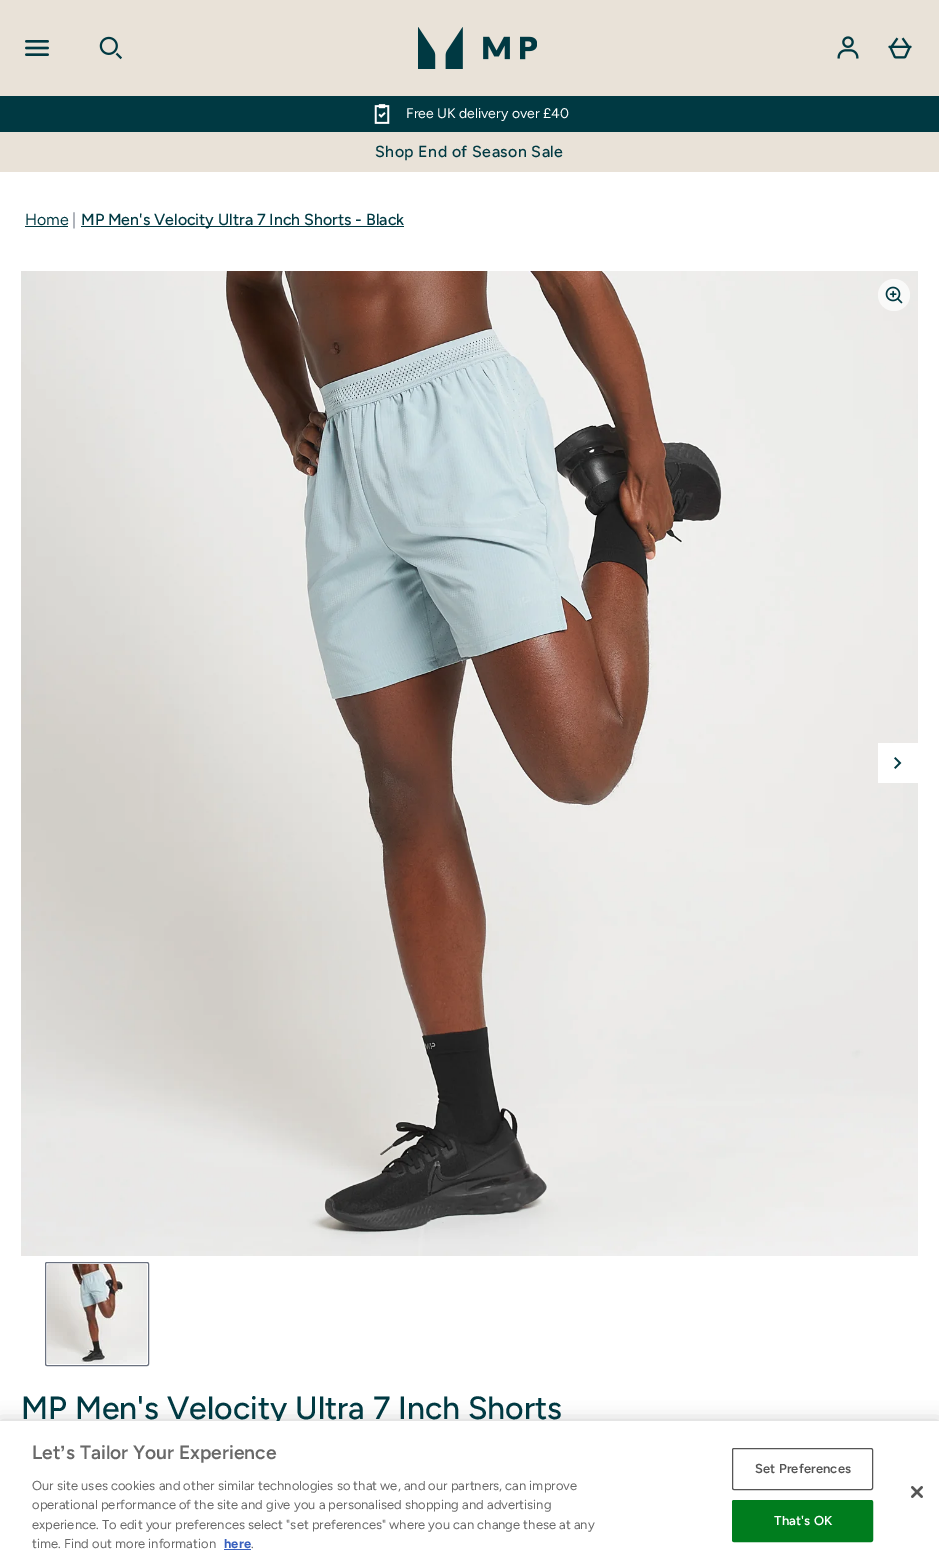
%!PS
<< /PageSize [939 1564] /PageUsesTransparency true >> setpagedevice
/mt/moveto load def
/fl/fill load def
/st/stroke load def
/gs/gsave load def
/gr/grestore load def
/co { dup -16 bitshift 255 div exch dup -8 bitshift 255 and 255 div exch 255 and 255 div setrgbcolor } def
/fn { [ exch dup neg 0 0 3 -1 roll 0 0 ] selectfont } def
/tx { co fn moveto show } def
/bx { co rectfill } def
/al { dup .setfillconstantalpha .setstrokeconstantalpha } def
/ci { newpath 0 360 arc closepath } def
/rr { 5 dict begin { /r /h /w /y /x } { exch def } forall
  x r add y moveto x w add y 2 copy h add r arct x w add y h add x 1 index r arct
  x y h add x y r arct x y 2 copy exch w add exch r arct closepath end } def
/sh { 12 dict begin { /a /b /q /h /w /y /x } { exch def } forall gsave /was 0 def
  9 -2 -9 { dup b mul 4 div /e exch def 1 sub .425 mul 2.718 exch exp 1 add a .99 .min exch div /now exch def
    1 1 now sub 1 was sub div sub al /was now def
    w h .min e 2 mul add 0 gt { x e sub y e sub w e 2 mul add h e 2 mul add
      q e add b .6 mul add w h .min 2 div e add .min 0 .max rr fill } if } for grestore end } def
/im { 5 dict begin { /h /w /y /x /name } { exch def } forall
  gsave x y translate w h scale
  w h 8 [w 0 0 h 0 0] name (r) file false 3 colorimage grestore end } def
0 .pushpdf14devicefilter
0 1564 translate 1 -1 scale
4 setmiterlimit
0 0 939 1564 16#FFFFFF bx
0 0 939 96 16#E9E2D8 bx
(media/1.raw) 25 40 24 16 im
(media/2.raw) 99 36 23 24 im
(media/3.raw) 418 27 119 42 im
(media/4.raw) 837 36 22 23 im
(media/5.raw) 888 37 24 22 im
0 96 939 36 16#003942 bx
(media/6.raw) 374 104 16 20 im
0 132 939 40 16#E9E2D8 bx
25 226 43 1 16#003942 bx
81 226 323 1 16#003942 bx
(media/7.raw) 21 271 897 985 im
0.7 al
16#FFFFFF co
894 295 16 ci fl
1 al
(media/8.raw) 885 286 18 18 im
878 743 40 40 16#FFFFFF bx
(media/9.raw) 894 757 8 12 im
16#6B7280 co
45.5 1262.5 103 103 1.5 rr st
(media/10.raw) 47 1264 100 100 im
16#000000 co
0 1421 939 143 0 9 .2 sh
(Free UK delivery over £40) 406 118 /Figtree-Regular 14 16#FFFFFF tx
/Figtree-Medium 16 fn
16#003942 co
375 157 mt .4 0 (Shop End of Season Sale) ashow
(Home) 25 225 /Figtree-Regular 16 16#003942 tx
(|) 72 225 /Figtree-Regular 16 16#6B7280 tx
(MP Men's Velocity Ultra 7 Inch Shorts - Black) 81 225 /Figtree-Medium 16 16#003942 tx
(MP Men's Velocity Ultra 7 Inch Shorts) 21 1419 /Figtree-Medium 32 16#003942 tx
0 1421 939 143 16#FFFFFF bx
(Let) 32 1459 /Figtree-SemiBold 19.25 16#696969 tx
(’) 60 1459 /LiberationSans-Bold 19.25 16#696969 tx
(s Tailor Your Experience) 66 1459 /Figtree-SemiBold 19.25 16#696969 tx
(Our site uses cookies and other similar technologies so that we, and our partners, can improve) 32 1490 /Figtree-Regular 13 16#696969 tx
(operational performance of the site and give you a personalised shopping and advertising) 32 1509 /Figtree-Regular 13 16#696969 tx
(experience. To edit your preferences select "set preferences" where you can change these at any) 32 1529 /Figtree-Regular 13 16#696969 tx
(time. Find out more information) 32 1548 /Figtree-Regular 13 16#696969 tx
(here) 224 1548 /Figtree-Bold 13 16#3860BE tx
224 1549 27 1 16#3860BE bx
(.) 251 1548 /Figtree-Regular 13 16#696969 tx
16#555555 co
732.5 1448.5 140 41 1.5 rr st
/Figtree-SemiBold 13 fn
755 1473 mt .1 0 (Set Preferences) ashow
16#007D1E co
732.5 1500.5 140 41 1.5 rr gs fl gr
st
16#FFFFFF co
774 1525 mt .1 0 (That's OK) ashow
(media/11.raw) 911 1486 12 12 im
.poppdf14devicefilter showpage
